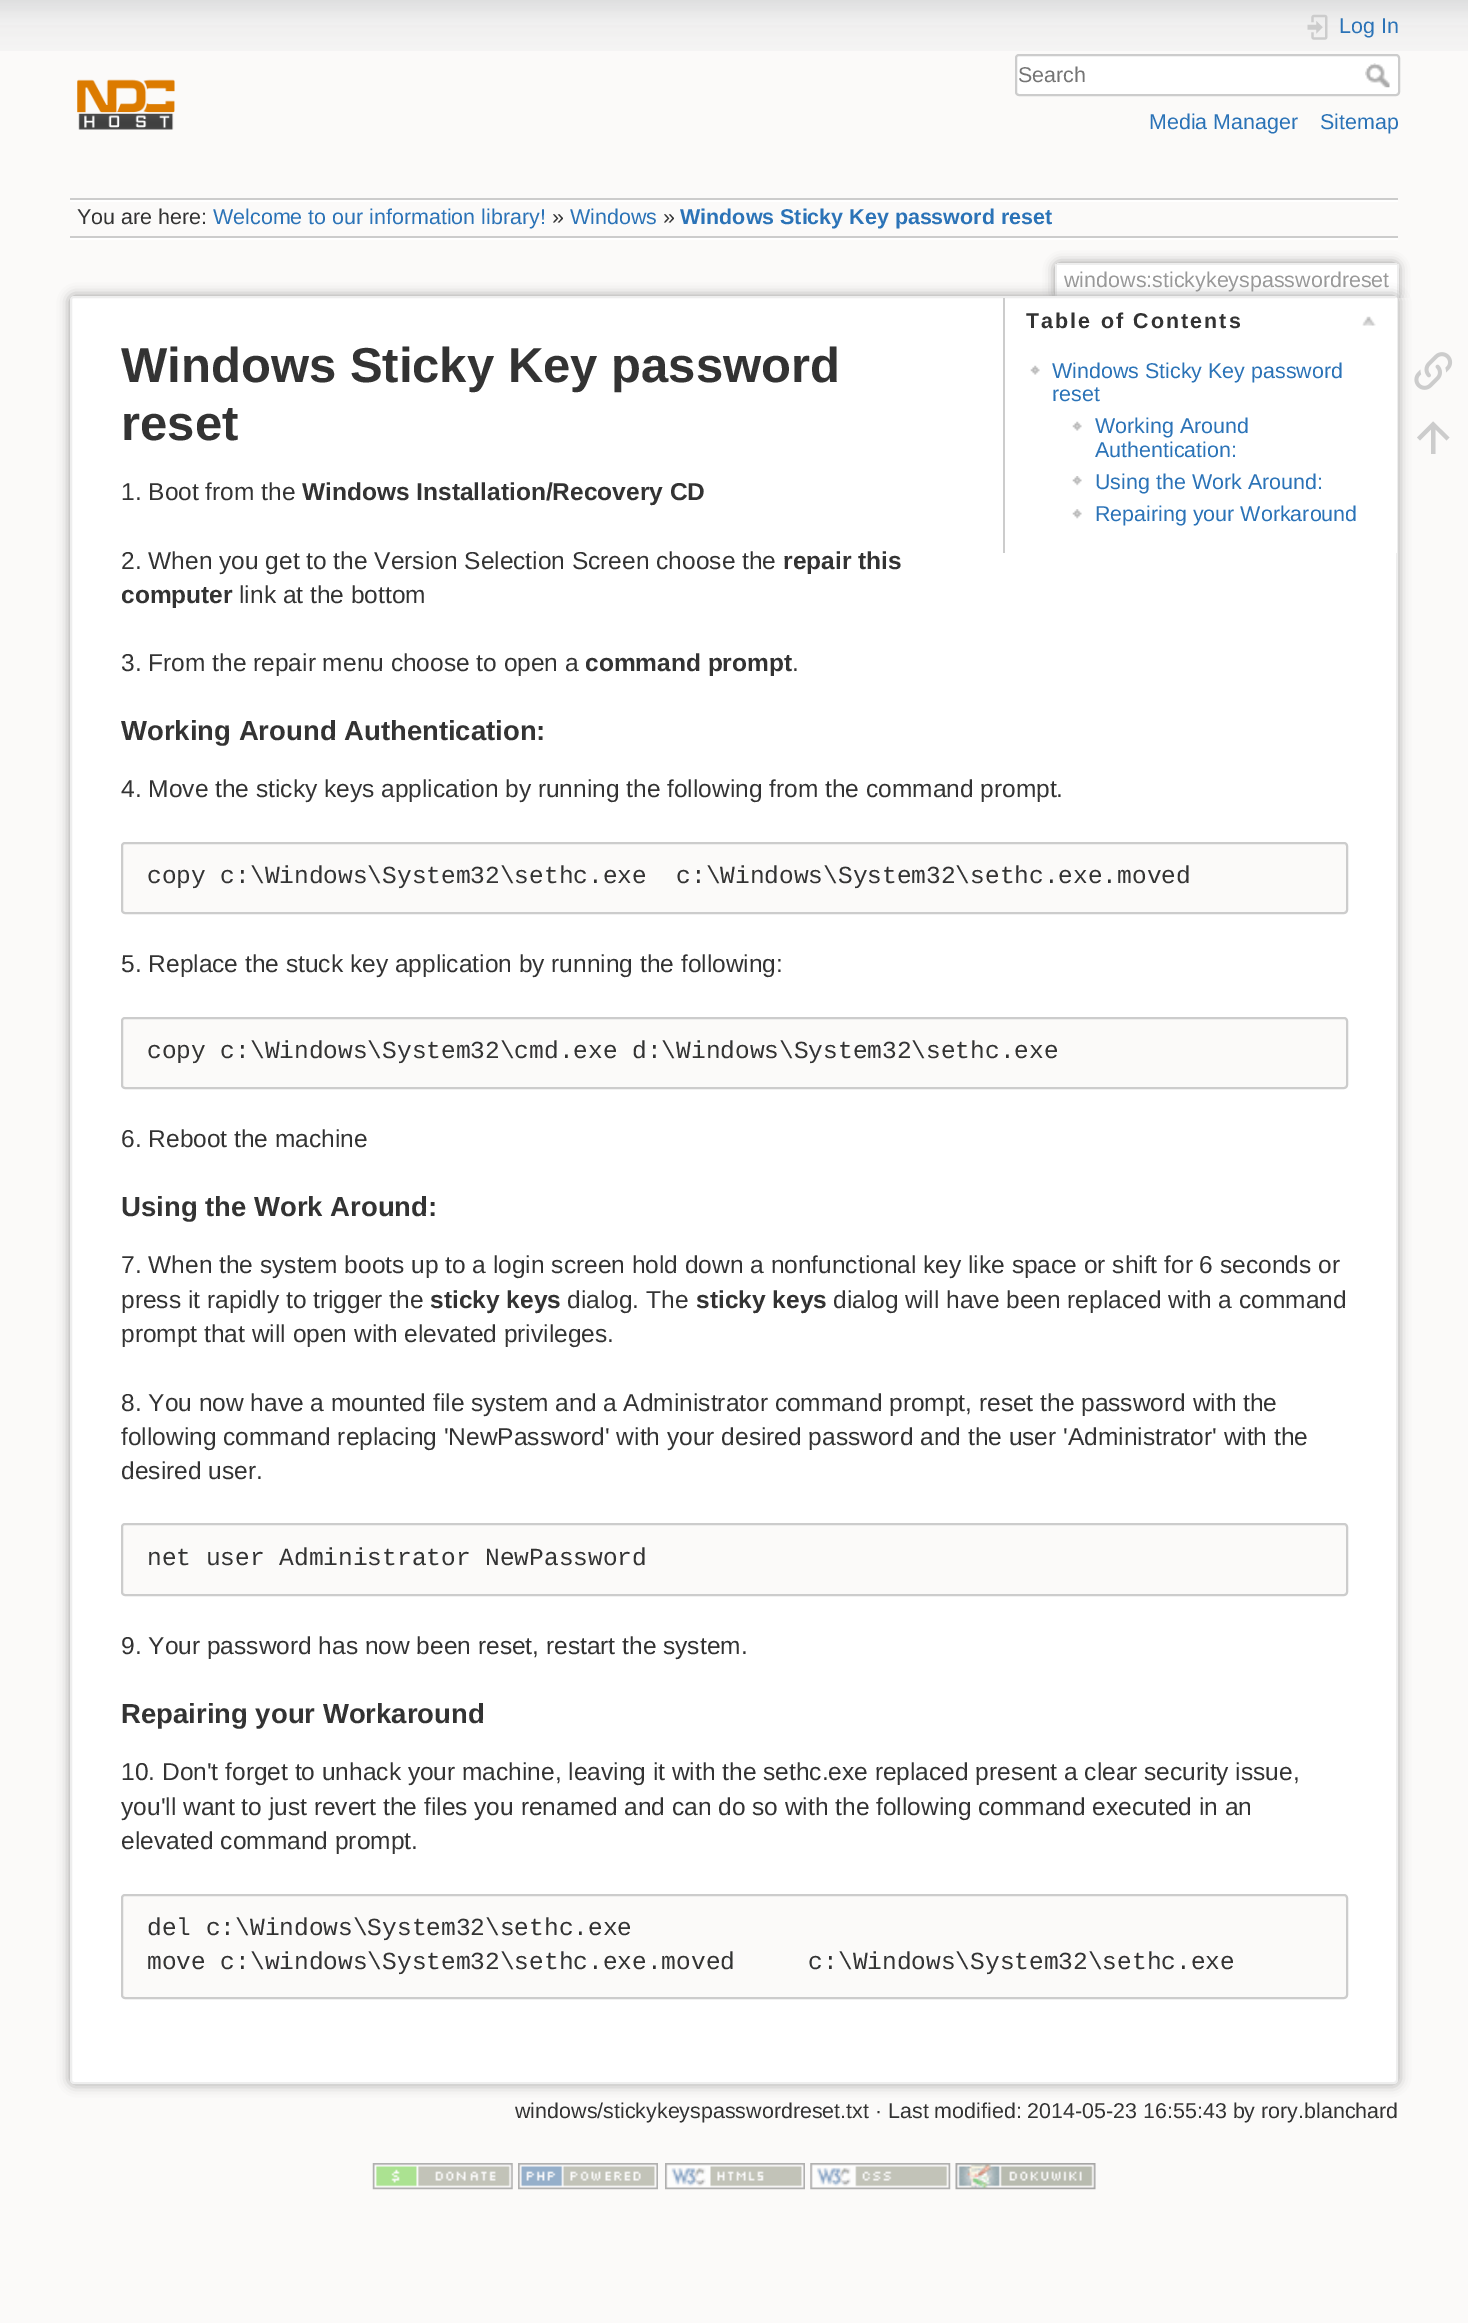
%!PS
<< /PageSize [1468 2323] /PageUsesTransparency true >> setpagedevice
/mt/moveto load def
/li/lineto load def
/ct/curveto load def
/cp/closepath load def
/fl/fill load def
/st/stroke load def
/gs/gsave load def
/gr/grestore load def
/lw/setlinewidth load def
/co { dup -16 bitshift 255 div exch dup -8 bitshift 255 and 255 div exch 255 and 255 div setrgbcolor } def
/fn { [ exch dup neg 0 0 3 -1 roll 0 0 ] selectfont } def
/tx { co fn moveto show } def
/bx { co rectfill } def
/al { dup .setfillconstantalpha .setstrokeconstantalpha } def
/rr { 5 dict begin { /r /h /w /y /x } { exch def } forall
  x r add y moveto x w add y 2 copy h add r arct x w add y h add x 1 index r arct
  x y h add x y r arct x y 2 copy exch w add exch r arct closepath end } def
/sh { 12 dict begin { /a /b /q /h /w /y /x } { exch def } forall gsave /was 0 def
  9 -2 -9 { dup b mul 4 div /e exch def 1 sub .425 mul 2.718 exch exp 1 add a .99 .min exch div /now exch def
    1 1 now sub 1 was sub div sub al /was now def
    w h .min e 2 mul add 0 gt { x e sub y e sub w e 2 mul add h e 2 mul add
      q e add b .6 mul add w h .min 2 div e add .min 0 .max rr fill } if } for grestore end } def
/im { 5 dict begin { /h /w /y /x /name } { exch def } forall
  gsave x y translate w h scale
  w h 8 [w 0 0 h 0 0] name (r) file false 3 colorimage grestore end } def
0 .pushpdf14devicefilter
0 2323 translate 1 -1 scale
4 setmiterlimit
0 0 1468 2323 16#FBFAF9 bx
(media/1.raw) 0 0 1468 51 im
(media/2.raw) 77 79 98 51 im
(media/3.raw) 1307 14 21 26 im
16#FFFFFF co
1016 55 383 40 3 rr gs fl gr
16#CCCCCC co
2 lw
st
(media/4.raw) 1365 63 25 25 im
70 198 1328 2 16#CCCCCC bx
70 238 1328 2 16#FFFFFF bx
70 200 1328 2 16#FFFFFF bx
70 236 1328 2 16#CCCCCC bx
gs
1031 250 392 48 rectclip
16#999999 co
1055 263 343 35 4 5.5 1 sh
gr
16#FFFFFF co
1059 264 mt 1395 264 li 1396 264 1397 265 1397 266 ct 1397 298 li 1057 298 li 1057 266 li 1057 265 1058 264 1059 264 ct cp fl
1057 263 340 2 16#EEEEEE bx
1397 264 2 34 16#EEEEEE bx
1055 264 2 34 16#EEEEEE bx
16#999999 co
70 296 1328 1788 4 6 1 sh
16#FFFFFF co
71 297 1326 1786 3 rr gs fl gr
16#EEEEEE co
st
1395 298 2 255 16#FFFFFF bx
1003 298 2 255 16#CCCCCC bx
(media/5.raw) 1362 316 14 10 im
(media/6.raw) 1030 365 10 10 im
(media/7.raw) 1072 421 10 10 im
(media/8.raw) 1072 476 10 10 im
(media/9.raw) 1072 509 10 10 im
16#FBFAF9 co
122 843 1225 70 3 rr gs fl gr
16#CCCCCC co
st
16#FBFAF9 co
122 1018 1225 70 3 rr gs fl gr
16#CCCCCC co
st
16#FBFAF9 co
122 1524 1225 71 3 rr gs fl gr
16#CCCCCC co
st
16#FBFAF9 co
122 1895 1225 103 3 rr gs fl gr
16#CCCCCC co
st
(media/10.raw) 1414 352 39 38 im
1435.5 454 mt 1431 454 li 1431 429.5 li 1420 440.5 li 1417 437.5 li 1433 421.5 li 1449.5 437.5 li 1446.5 440.5 li 1435.5 429.5 li cp fl
(media/11.raw) 372 2163 141 27 im
(media/12.raw) 518 2163 140 27 im
(media/13.raw) 665 2163 140 27 im
(media/14.raw) 810 2163 141 27 im
(media/15.raw) 955 2163 141 27 im
(Log In) 1339 33 /LiberationSans-Regular 21.45 16#2B73B7 tx
(Search) 1018 82 /LiberationSans-Regular 21.45 16#757575 tx
(Media Manager) 1149 129 /LiberationSans-Regular 21.45 16#2B73B7 tx
(Sitemap) 1320 129 /LiberationSans-Regular 21.45 16#2B73B7 tx
(You are here:) 77 224 /LiberationSans-Regular 21.45 16#333333 tx
(Welcome to our information library!) 213 224 /LiberationSans-Regular 21.45 16#2B73B7 tx
(») 552 224 /LiberationSans-Regular 21.45 16#333333 tx
(Windows) 570 224 /LiberationSans-Regular 21.45 16#2B73B7 tx
(») 663 224 /LiberationSans-Regular 21.45 16#333333 tx
(Windows Sticky Key password reset) 680 224 /LiberationSans-Bold 21.45 16#2B73B7 tx
(windows:stickykeyspasswordreset) 1064 287 /LiberationSans-Regular 21.45 16#999999 tx
(Windows Sticky Key password) 121 382 /LiberationSans-Bold 49 16#333333 tx
(reset) 121 440 /LiberationSans-Bold 49 16#333333 tx
/LiberationSans-Bold 21.45 fn
1026 328 mt 2.1 0 (Table of Contents) ashow
(Windows Sticky Key password) 1052 378 /LiberationSans-Regular 21.45 16#2B73B7 tx
(reset) 1052 401 /LiberationSans-Regular 21.45 16#2B73B7 tx
(Working Around) 1095 433 /LiberationSans-Regular 21.45 16#2B73B7 tx
(Authentication:) 1095 457 /LiberationSans-Regular 21.45 16#2B73B7 tx
(Using the Work Around:) 1095 489 /LiberationSans-Regular 21.45 16#2B73B7 tx
(Repairing your Workaround) 1095 521 /LiberationSans-Regular 21.45 16#2B73B7 tx
(1. Boot from the) 121 500 /LiberationSans-Regular 24.5 16#333333 tx
(Windows Installation/Recovery CD) 302 500 /LiberationSans-Bold 24.5 16#333333 tx
(2. When you get to the Version Selection Screen choose the) 121 569 /LiberationSans-Regular 24.5 16#333333 tx
(repair this) 783 569 /LiberationSans-Bold 24.5 16#333333 tx
(computer) 121 603 /LiberationSans-Bold 24.5 16#333333 tx
(link at the bottom) 239 603 /LiberationSans-Regular 24.5 16#333333 tx
(3. From the repair menu choose to open a) 121 671 /LiberationSans-Regular 24.5 16#333333 tx
(command prompt) 585 671 /LiberationSans-Bold 24.5 16#333333 tx
(.) 792 671 /LiberationSans-Regular 24.5 16#333333 tx
(Working Around Authentication:) 121 740 /LiberationSans-Bold 27.5 16#333333 tx
(4. Move the sticky keys application by running the following from the command prompt.) 121 797 /LiberationSans-Regular 24.5 16#333333 tx
(copy c:\\Windows\\System32\\sethc.exe  c:\\Windows\\System32\\sethc.exe.moved) 147 883 /LiberationMono-Regular 24.5 16#333333 tx
(5. Replace the stuck key application by running the following:) 121 972 /LiberationSans-Regular 24.5 16#333333 tx
(copy c:\\Windows\\System32\\cmd.exe d:\\Windows\\System32\\sethc.exe) 147 1058 /LiberationMono-Regular 24.5 16#333333 tx
(6. Reboot the machine) 121 1147 /LiberationSans-Regular 24.5 16#333333 tx
(Using the Work Around:) 121 1216 /LiberationSans-Bold 27.5 16#333333 tx
(7. When the system boots up to a login screen hold down a nonfunctional key like space or shift for 6 seconds or) 121 1273 /LiberationSans-Regular 24.5 16#333333 tx
(press it rapidly to trigger the) 121 1308 /LiberationSans-Regular 24.5 16#333333 tx
(sticky keys) 430 1308 /LiberationSans-Bold 24.5 16#333333 tx
(dialog. The) 567 1308 /LiberationSans-Regular 24.5 16#333333 tx
(sticky keys) 696 1308 /LiberationSans-Bold 24.5 16#333333 tx
(dialog will have been replaced with a command) 833 1308 /LiberationSans-Regular 24.5 16#333333 tx
(prompt that will open with elevated privileges.) 121 1342 /LiberationSans-Regular 24.5 16#333333 tx
(8. You now have a mounted file system and a Administrator command prompt, reset the password with the) 121 1411 /LiberationSans-Regular 24.5 16#333333 tx
(following command replacing 'NewPassword' with your desired password and the user 'Administrator' with the) 121 1445 /LiberationSans-Regular 24.5 16#333333 tx
(desired user.) 121 1479 /LiberationSans-Regular 24.5 16#333333 tx
(net user Administrator NewPassword) 147 1565 /LiberationMono-Regular 24.5 16#333333 tx
(9. Your password has now been reset, restart the system.) 121 1654 /LiberationSans-Regular 24.5 16#333333 tx
(Repairing your Workaround) 121 1723 /LiberationSans-Bold 27.5 16#333333 tx
(10. Don't forget to unhack your machine, leaving it with the sethc.exe replaced present a clear security issue,) 121 1780 /LiberationSans-Regular 24.5 16#333333 tx
(you'll want to just revert the files you renamed and can do so with the following command executed in an) 121 1815 /LiberationSans-Regular 24.5 16#333333 tx
(elevated command prompt.) 121 1849 /LiberationSans-Regular 24.5 16#333333 tx
(del c:\\Windows\\System32\\sethc.exe) 147 1935 /LiberationMono-Regular 24.5 16#333333 tx
(move c:\\windows\\System32\\sethc.exe.moved     c:\\Windows\\System32\\sethc.exe) 147 1969 /LiberationMono-Regular 24.5 16#333333 tx
(windows/stickykeyspasswordreset.txt · Last modified: 2014-05-23 16:55:43 by rory.blanchard) 515 2118 /LiberationSans-Regular 21.45 16#333333 tx
.poppdf14devicefilter showpage
